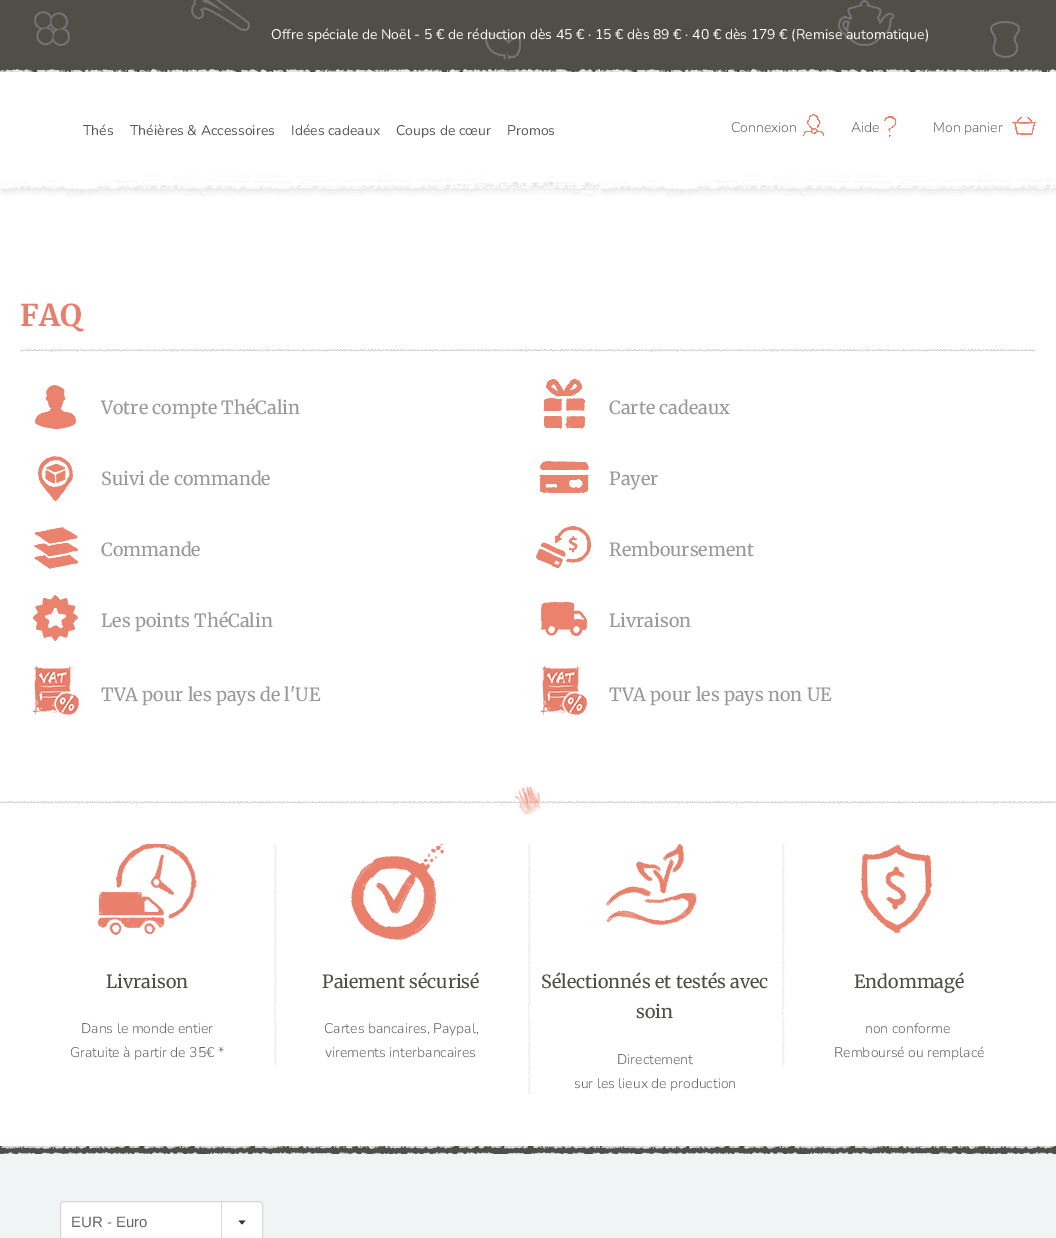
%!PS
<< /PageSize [1056 1238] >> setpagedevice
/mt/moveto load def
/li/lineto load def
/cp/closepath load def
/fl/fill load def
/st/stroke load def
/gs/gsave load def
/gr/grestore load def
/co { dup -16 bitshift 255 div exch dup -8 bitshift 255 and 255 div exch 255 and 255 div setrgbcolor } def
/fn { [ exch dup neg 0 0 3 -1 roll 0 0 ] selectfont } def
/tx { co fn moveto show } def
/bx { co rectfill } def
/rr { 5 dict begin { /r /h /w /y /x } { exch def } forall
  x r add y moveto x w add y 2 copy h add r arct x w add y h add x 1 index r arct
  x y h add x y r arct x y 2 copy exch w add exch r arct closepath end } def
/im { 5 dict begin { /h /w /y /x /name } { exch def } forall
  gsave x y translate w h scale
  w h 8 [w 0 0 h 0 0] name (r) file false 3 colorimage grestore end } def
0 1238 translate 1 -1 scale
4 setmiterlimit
0 0 1056 1238 16#FFFFFF bx
(media/1.raw) 0 0 1056 64 im
(media/2.raw) 0 64 1056 8 im
(media/3.raw) 803 114 22 23 im
(media/4.raw) 884 115 13 22 im
(media/5.raw) 1012 117 24 18 im
(media/6.raw) 0 174 1056 23 im
(media/7.raw) 20 349 1016 3 im
(media/8.raw) 35 385 41 44 im
(media/9.raw) 543 379 42 50 im
(media/10.raw) 38 456 35 45 im
(media/11.raw) 539 461 50 32 im
(media/12.raw) 34 527 44 42 im
(media/13.raw) 536 526 55 42 im
(media/14.raw) 33 595 45 46 im
(media/15.raw) 541 602 46 34 im
(media/16.raw) 33 666 46 49 im
(media/16.raw) 541 666 46 49 im
(media/17.raw) 0 786 1056 28 im
(media/18.raw) 98 844 99 91 im
(media/19.raw) 274 844 3 221 im
(media/20.raw) 351 844 93 97 im
(media/21.raw) 528 844 3 251 im
(media/22.raw) 606 844 91 81 im
(media/19.raw) 782 844 3 221 im
(media/23.raw) 860 844 72 90 im
0 1146 1056 92 16#F1F4F5 bx
(media/24.raw) 0 1146 1056 8 im
16#FFFFFF co
60.5 1201.5 202 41 3.5 rr gs fl gr
16#D9D8D9 co
st
221 1202 1 36 16#D9D8D9 bx
16#333333 co
238.5 1220.5 mt 242 1224.5 li 245.5 1220.5 li cp fl
(Offre spéciale de Noël - 5 € de réduction dès 45 € · 15 € dès 89 € · 40 € dès 179 € \(Remise automatique\)) 271 39 /Nunito-Regular 14 16#FFFFFF tx
(Thés) 83 135 /Nunito-Regular 14 16#575757 tx
(Théières & Accessoires) 130 135 /Nunito-Regular 14 16#575757 tx
(Idées cadeaux) 291 135 /Nunito-Regular 14 16#575757 tx
(Coups de cœur) 396 135 /Nunito-Regular 14 16#575757 tx
(Promos) 507 135 /Nunito-Regular 14 16#575757 tx
(Connexion) 731 132 /Nunito-Light 14 16#666666 tx
(Aide) 851 132 /Nunito-Light 14 16#666666 tx
(Mon panier) 933 132 /Nunito-Light 14 16#666666 tx
(FAQ) 20 326 /Merriweather-Bold 30 16#E87F6D tx
(Votre compte ThéCalin) 101 414 /Merriweather-Regular 18 16#999999 tx
(Carte cadeaux) 609 414 /Merriweather-Regular 18 16#999999 tx
(Suivi de commande) 101 485 /Merriweather-Regular 18 16#999999 tx
(Payer) 609 485 /Merriweather-Regular 18 16#999999 tx
(Commande) 101 556 /Merriweather-Regular 18 16#999999 tx
(Remboursement) 609 556 /Merriweather-Regular 18 16#999999 tx
(Les points ThéCalin) 101 627 /Merriweather-Regular 18 16#999999 tx
(Livraison) 609 627 /Merriweather-Regular 18 16#999999 tx
(TVA pour les pays de l'UE) 101 701 /Merriweather-Regular 18 16#999999 tx
(TVA pour les pays non UE) 609 701 /Merriweather-Regular 18 16#999999 tx
(Livraison) 106 988 /Merriweather-Regular 18 16#4F4E47 tx
(Dans le monde entier) 81 1033 /Nunito-Light 14 16#666666 tx
(Gratuite à partir de 35€ *) 70 1057 /Nunito-Light 14 16#666666 tx
(Paiement sécurisé) 322 988 /Merriweather-Regular 18 16#4F4E47 tx
(Cartes bancaires, Paypal,) 324 1033 /Nunito-Light 14 16#666666 tx
(virements interbancaires) 325 1057 /Nunito-Light 14 16#666666 tx
(Sélectionnés et testés avec) 541 988 /Merriweather-Regular 18 16#4F4E47 tx
(soin) 636 1018 /Merriweather-Regular 18 16#4F4E47 tx
(Directement) 617 1064 /Nunito-Light 14 16#666666 tx
(sur les lieux de production) 574 1088 /Nunito-Light 14 16#666666 tx
(Endommagé) 854 988 /Merriweather-Regular 18 16#4F4E47 tx
(non conforme) 865 1033 /Nunito-Light 14 16#666666 tx
(Remboursé ou remplacé) 834 1057 /Nunito-Light 14 16#666666 tx
(EUR - Euro) 71 1227 /LiberationSans-Regular 15 16#666666 tx
showpage
